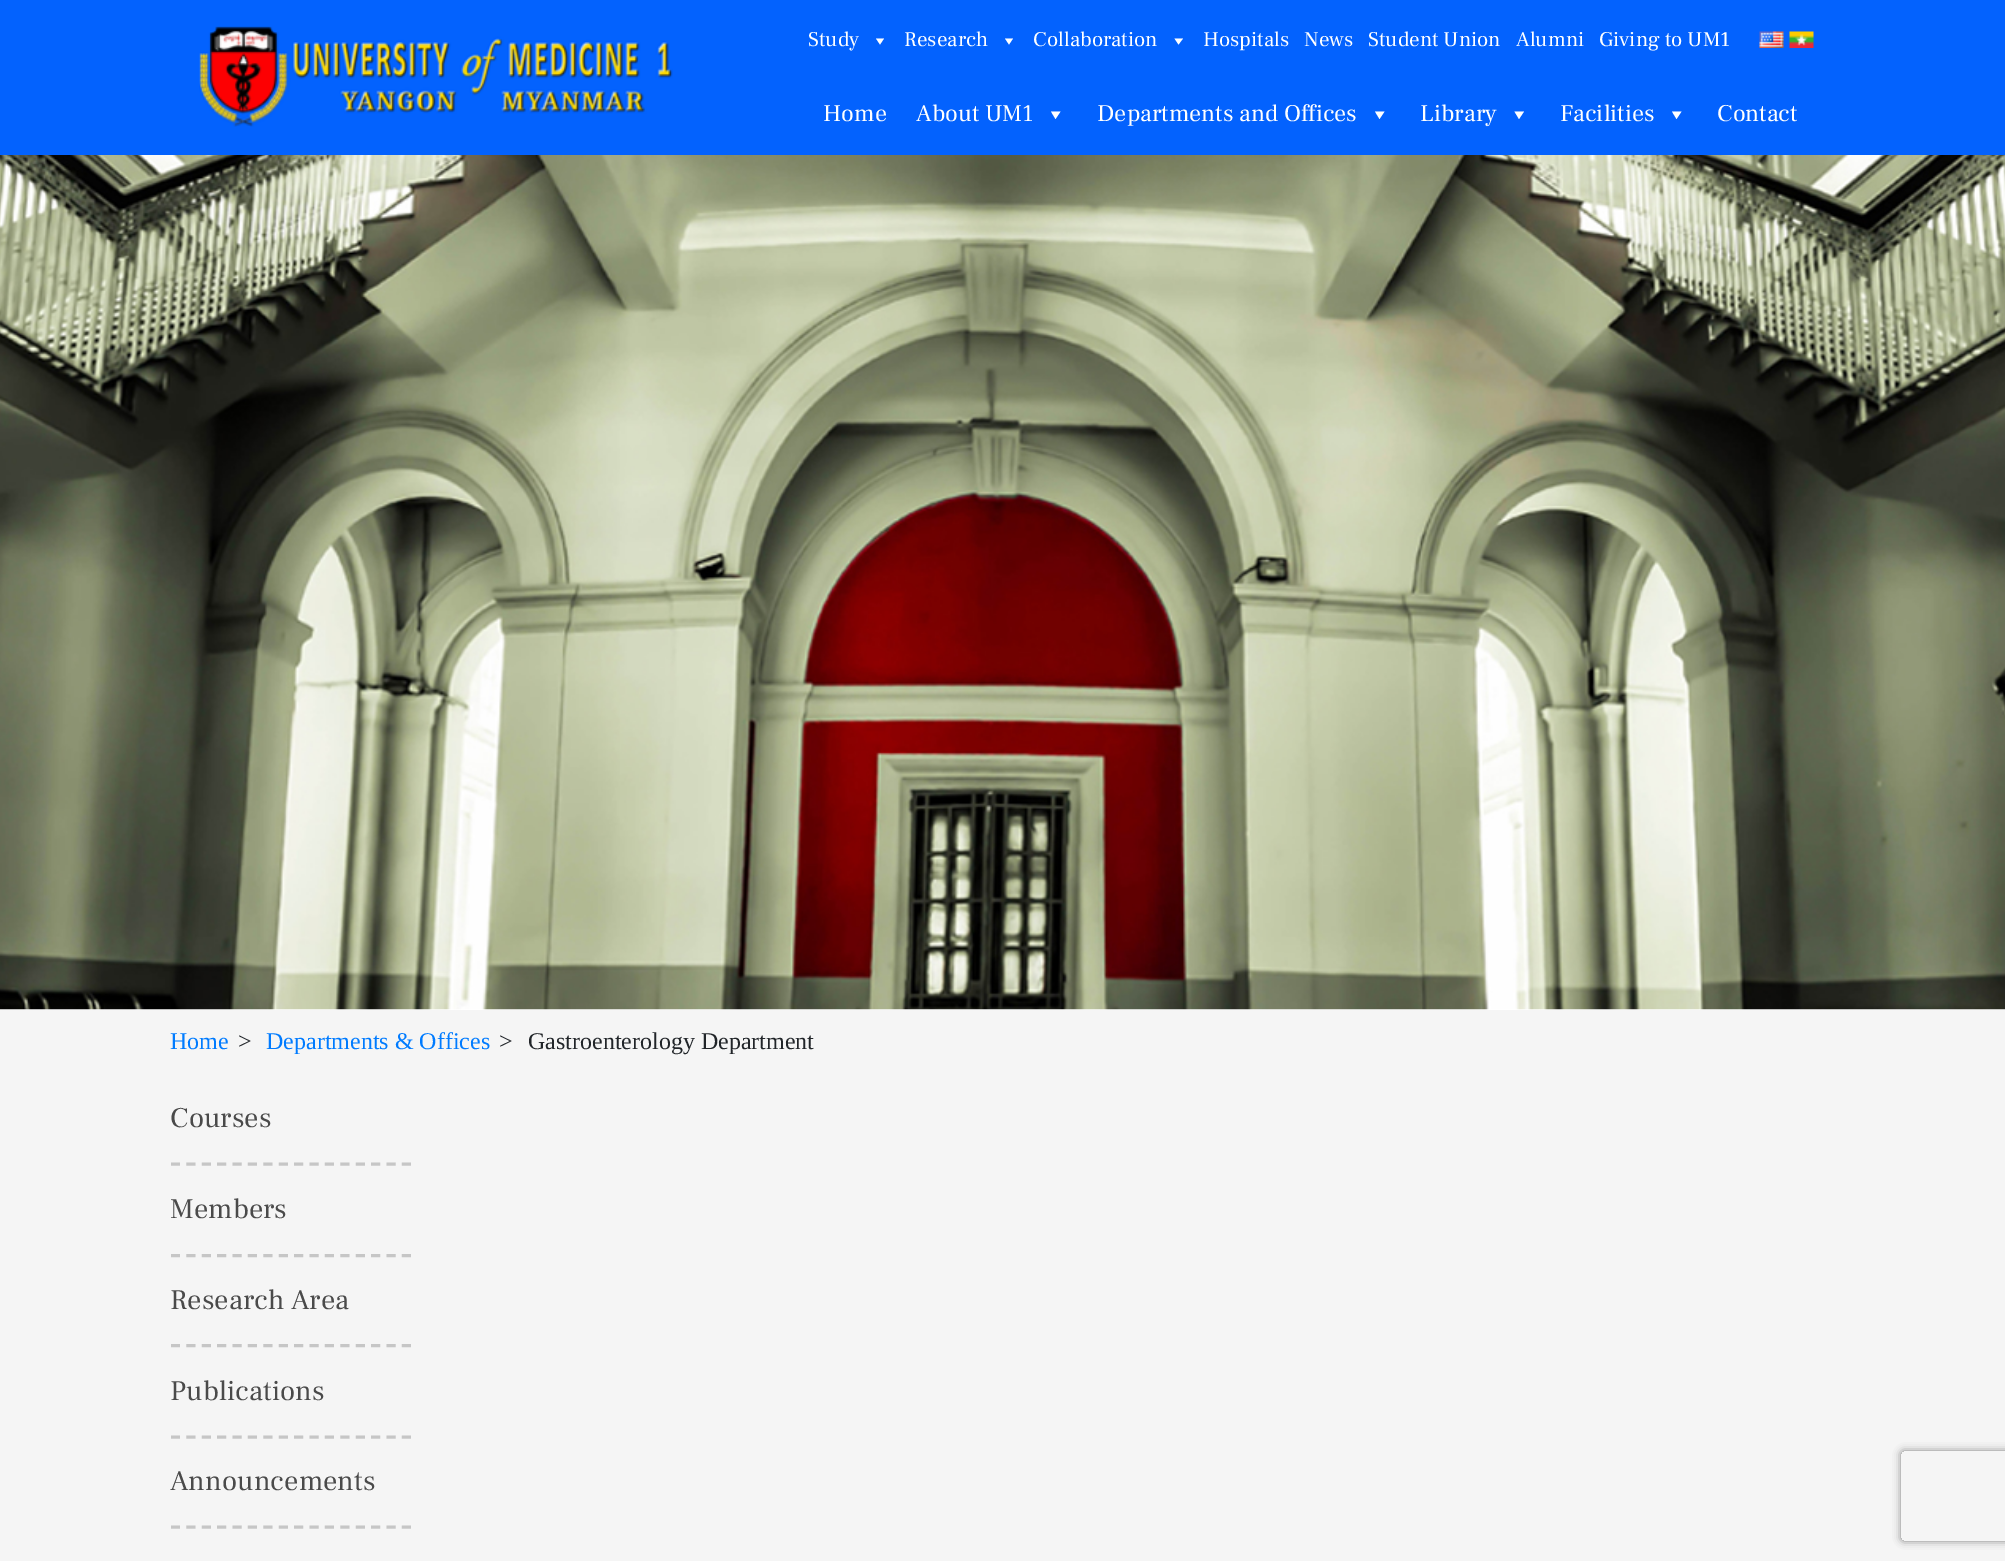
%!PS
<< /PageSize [2005 1561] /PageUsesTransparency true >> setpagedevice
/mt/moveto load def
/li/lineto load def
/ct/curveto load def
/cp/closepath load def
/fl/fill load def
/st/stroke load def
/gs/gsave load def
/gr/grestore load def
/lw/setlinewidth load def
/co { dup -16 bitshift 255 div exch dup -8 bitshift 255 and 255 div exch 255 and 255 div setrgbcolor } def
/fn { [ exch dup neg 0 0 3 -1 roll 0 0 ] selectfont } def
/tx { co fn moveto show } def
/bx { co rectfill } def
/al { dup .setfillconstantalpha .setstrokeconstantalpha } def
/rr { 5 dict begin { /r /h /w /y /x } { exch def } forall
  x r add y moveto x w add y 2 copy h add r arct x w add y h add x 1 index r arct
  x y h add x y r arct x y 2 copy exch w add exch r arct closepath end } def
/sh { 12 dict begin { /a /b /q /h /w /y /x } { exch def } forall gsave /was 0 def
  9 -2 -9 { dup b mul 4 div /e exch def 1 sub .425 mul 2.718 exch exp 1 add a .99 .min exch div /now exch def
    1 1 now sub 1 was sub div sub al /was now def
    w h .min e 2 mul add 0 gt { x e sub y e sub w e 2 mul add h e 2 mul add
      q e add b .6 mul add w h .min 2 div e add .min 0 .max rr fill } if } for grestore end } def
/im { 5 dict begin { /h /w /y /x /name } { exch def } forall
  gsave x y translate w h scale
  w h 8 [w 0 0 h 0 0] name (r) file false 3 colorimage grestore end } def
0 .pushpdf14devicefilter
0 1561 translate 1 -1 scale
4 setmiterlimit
0 0 2005 1561 16#FFFFFF bx
0 0 2005 155 16#0362FE bx
(media/1.raw) 199 26 474 101 im
16#FFFFFF co
884 38.5 mt 880 44.5 li 876 38.5 li cp fl
1013 38.5 mt 1009 44.5 li 1005 38.5 li cp fl
1183 38.5 mt 1178.5 44.5 li 1174.5 38.5 li cp fl
(media/2.raw) 1759 31 25 17 im
(media/3.raw) 1789 31 25 17 im
1060.5 111.5 mt 1055.5 119 li 1051 111.5 li cp fl
1384.5 111.5 mt 1379.5 119 li 1375 111.5 li cp fl
1524 111.5 mt 1519 119 li 1514.5 111.5 li cp fl
1681.5 111.5 mt 1676.5 119 li 1672 111.5 li cp fl
(media/4.raw) 0 155 2005 855 im
0 1010 2005 551 16#F5F5F5 bx
16#C6C6C6 co
3 lw
[9 6.4] 0 setdash
171 1164 mt 411 1164 li st
171 1255.5 mt 411 1255.5 li st
171 1345.5 mt 411 1345.5 li st
171 1437 mt 411 1437 li st
171 1527 mt 411 1527 li st
gs
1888 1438 mt 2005 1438 li 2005 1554 li 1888 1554 li cp 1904 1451 mt 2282 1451 li 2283.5 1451 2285 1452.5 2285 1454 ct 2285 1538 li 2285 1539.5 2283.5 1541 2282 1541 ct 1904 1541 li 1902.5 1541 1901 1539.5 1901 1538 ct 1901 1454 li 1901 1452.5 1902.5 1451 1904 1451 ct cp eoclip newpath
16#808080 co
1901 1451 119 90 3 4 1 sh
gr
(Study) 808 46 /FrankRuhlLibre-Regular 21 16#FFFFFF tx
(Research) 904 46 /FrankRuhlLibre-Regular 21 16#FFFFFF tx
(Collaboration) 1033 46 /FrankRuhlLibre-Regular 21 16#FFFFFF tx
(Hospitals) 1203 46 /FrankRuhlLibre-Regular 21 16#FFFFFF tx
(News) 1304 46 /FrankRuhlLibre-Regular 21 16#FFFFFF tx
(Student Union) 1368 46 /FrankRuhlLibre-Regular 21 16#FFFFFF tx
(Alumni) 1516 46 /FrankRuhlLibre-Regular 21 16#FFFFFF tx
(Giving to UM1) 1599 46 /FrankRuhlLibre-Regular 21 16#FFFFFF tx
(Home) 823 121 /FrankRuhlLibre-Regular 24 16#FFFFFF tx
(About UM1) 916 121 /FrankRuhlLibre-Regular 24 16#FFFFFF tx
(Departments and Offices) 1097 121 /FrankRuhlLibre-Regular 24 16#FFFFFF tx
(Library) 1420 121 /FrankRuhlLibre-Regular 24 16#FFFFFF tx
(Facilities) 1560 121 /FrankRuhlLibre-Regular 24 16#FFFFFF tx
(Contact) 1717 121 /FrankRuhlLibre-Regular 24 16#FFFFFF tx
(Home) 170 1049 /LiberationSerif-Regular 24 16#007BFF tx
(>) 238 1049 /LiberationSerif-Regular 24 16#212529 tx
(Departments & Offices) 266 1049 /LiberationSerif-Regular 24 16#007BFF tx
(>) 499 1049 /LiberationSerif-Regular 24 16#212529 tx
(Gastroenterology Department) 528 1049 /LiberationSerif-Regular 24 16#212529 tx
(Courses) 170 1127 /FrankRuhlLibre-Regular 28.5 16#4A4A4A tx
(Members) 170 1218 /FrankRuhlLibre-Regular 28.5 16#4A4A4A tx
(Research Area) 170 1309 /FrankRuhlLibre-Regular 28.5 16#4A4A4A tx
(Publications) 170 1400 /FrankRuhlLibre-Regular 28.5 16#4A4A4A tx
(Announcements) 170 1490 /FrankRuhlLibre-Regular 28.5 16#4A4A4A tx
.poppdf14devicefilter showpage
